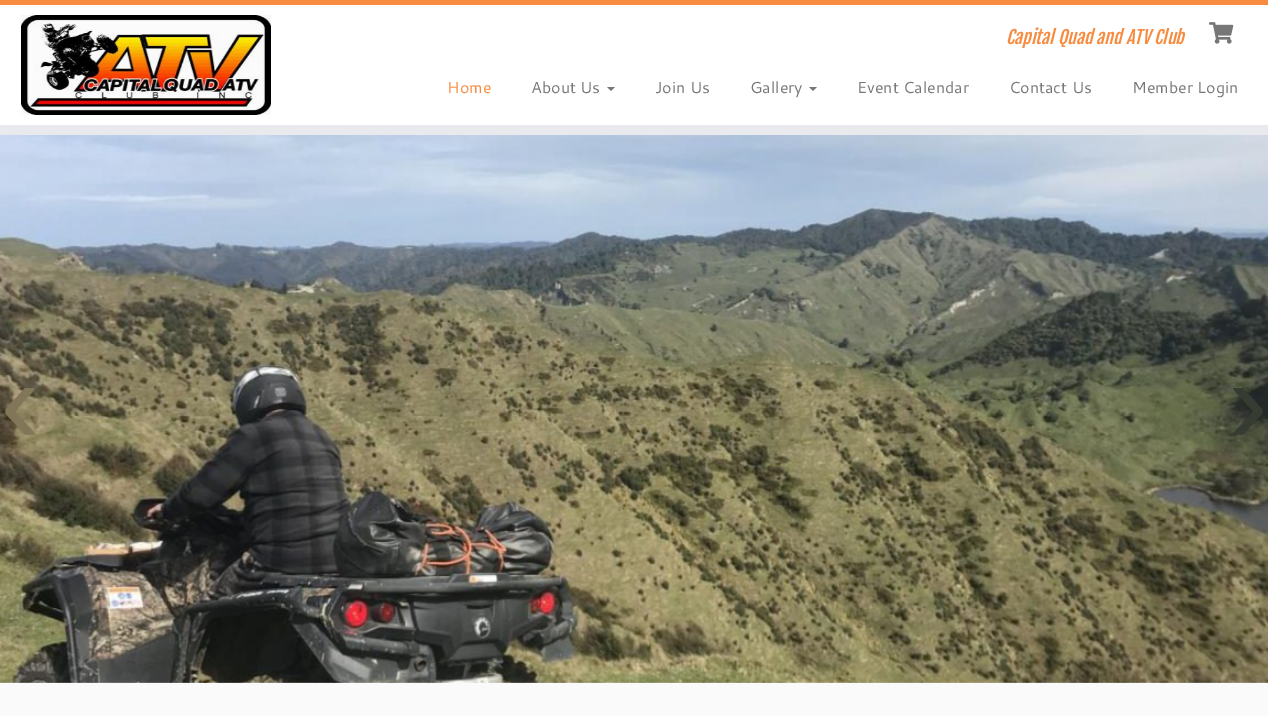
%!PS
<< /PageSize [1268 716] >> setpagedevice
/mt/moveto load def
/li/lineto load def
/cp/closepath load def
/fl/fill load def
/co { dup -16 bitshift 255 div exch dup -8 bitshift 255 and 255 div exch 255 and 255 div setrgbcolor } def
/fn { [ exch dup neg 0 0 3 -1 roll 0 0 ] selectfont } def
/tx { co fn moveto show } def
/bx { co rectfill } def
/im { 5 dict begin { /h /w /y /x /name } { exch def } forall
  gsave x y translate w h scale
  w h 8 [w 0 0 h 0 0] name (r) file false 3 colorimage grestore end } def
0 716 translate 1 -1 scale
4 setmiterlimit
0 0 1268 716 16#FAFAFA bx
0 5 1268 120 16#FFFFFF bx
0 0 1268 5 16#F78C40 bx
0 125 1268 10 16#E9EAEE bx
(media/1.raw) 21 15 250 100 im
(media/2.raw) 1209 22 25 22 im
16#777777 co
607 87 mt 615 87 li 611 91 li cp fl
809 87 mt 817 87 li 813 91 li cp fl
(media/3.raw) 0 135 1268 548 im
(Capital Quad and ATV Club) 1006 44 /FjallaOne-Italic 18 16#F78C40 tx
(Home) 447 93 /Cantarell-Regular 16 16#F78C40 tx
(About Us) 531 93 /Cantarell-Regular 16 16#777777 tx
(Join Us) 655 93 /Cantarell-Regular 16 16#777777 tx
(Gallery) 750 93 /Cantarell-Regular 16 16#777777 tx
(Event Calendar) 857 93 /Cantarell-Regular 16 16#777777 tx
(Contact Us) 1009 93 /Cantarell-Regular 16 16#777777 tx
(Member Login) 1132 93 /Cantarell-Regular 16 16#777777 tx
(‹) 0 443 /LiberationSans-Regular 120 16#817758 tx
(›) 1228 443 /LiberationSans-Regular 120 16#363C31 tx
showpage
